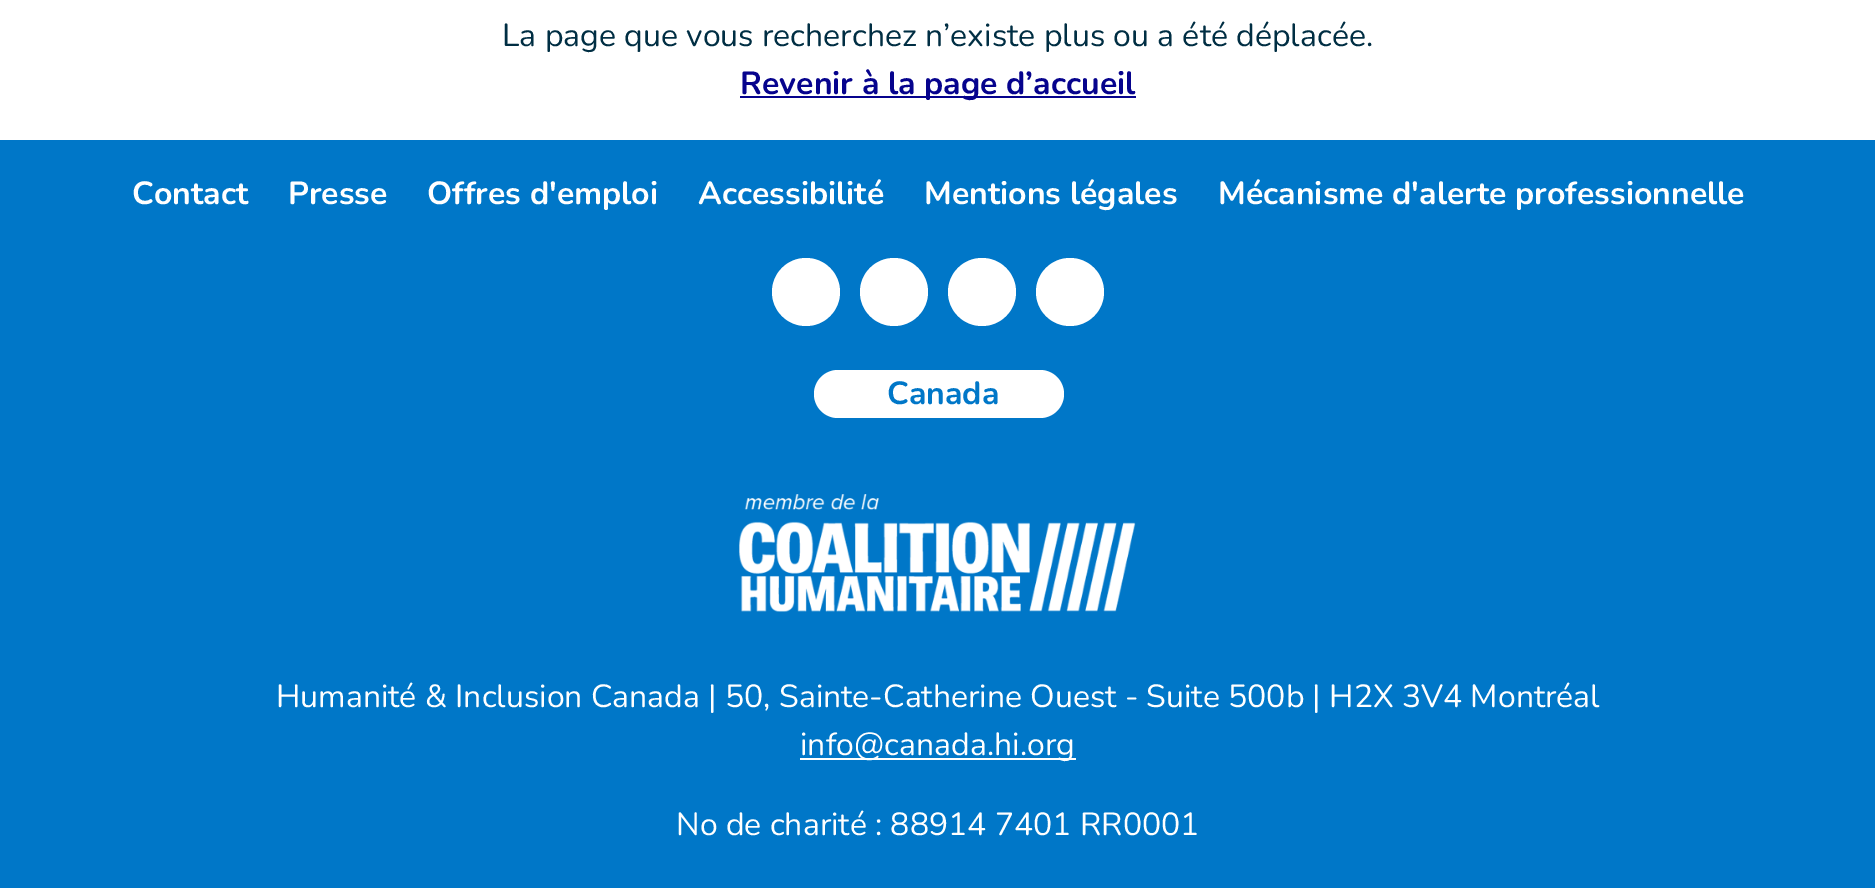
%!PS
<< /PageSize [1875 888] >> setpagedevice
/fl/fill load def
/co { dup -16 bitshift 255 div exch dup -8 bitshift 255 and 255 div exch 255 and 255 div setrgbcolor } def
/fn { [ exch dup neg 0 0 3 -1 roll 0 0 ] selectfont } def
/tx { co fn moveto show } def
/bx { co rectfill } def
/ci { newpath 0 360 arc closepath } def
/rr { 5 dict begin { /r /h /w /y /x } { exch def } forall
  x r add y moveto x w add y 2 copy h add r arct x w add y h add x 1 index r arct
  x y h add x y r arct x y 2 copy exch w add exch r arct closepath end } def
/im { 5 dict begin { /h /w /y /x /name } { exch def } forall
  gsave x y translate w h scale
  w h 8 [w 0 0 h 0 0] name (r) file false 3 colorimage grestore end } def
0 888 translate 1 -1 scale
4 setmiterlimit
0 0 1875 888 16#FFFFFF bx
740 96 396 2 16#06038D bx
0 140 1875 748 16#0077C8 bx
16#FFFFFF co
806 292 34 ci fl
894 292 34 ci fl
982 292 34 ci fl
1070 292 34 ci fl
814 370 250 48 24 rr fl
(media/1.raw) 739 494 397 118 im
800 758 276 2 16#FFFFFF bx
(La page que vous recherchez n’existe plus ou a été déplacée.) 502 46 /Nunito-Regular 32 16#002E43 tx
(Revenir à la page d’accueil) 740 94 /Nunito-Bold 32 16#06038D tx
(Contact) 132 204 /Nunito-Bold 32 16#FFFFFF tx
(Presse) 288 204 /Nunito-Bold 32 16#FFFFFF tx
(Offres d'emploi) 427 204 /Nunito-Bold 32 16#FFFFFF tx
(Accessibilité) 698 204 /Nunito-Bold 32 16#FFFFFF tx
(Mentions légales) 924 204 /Nunito-Bold 32 16#FFFFFF tx
(Mécanisme d'alerte professionnelle) 1218 204 /Nunito-Bold 32 16#FFFFFF tx
(Canada) 887 404 /Nunito-Bold 32 16#0077C8 tx
(Humanité & Inclusion Canada | 50, Sainte-Catherine Ouest - Suite 500b | H2X 3V4 Montréal) 276 707 /Nunito-Regular 32 16#FFFFFF tx
(info@canada.hi.org) 800 755 /Nunito-Regular 32 16#FFFFFF tx
(No de charité : 88914 7401 RR0001) 676 835 /Nunito-Regular 32 16#FFFFFF tx
showpage
